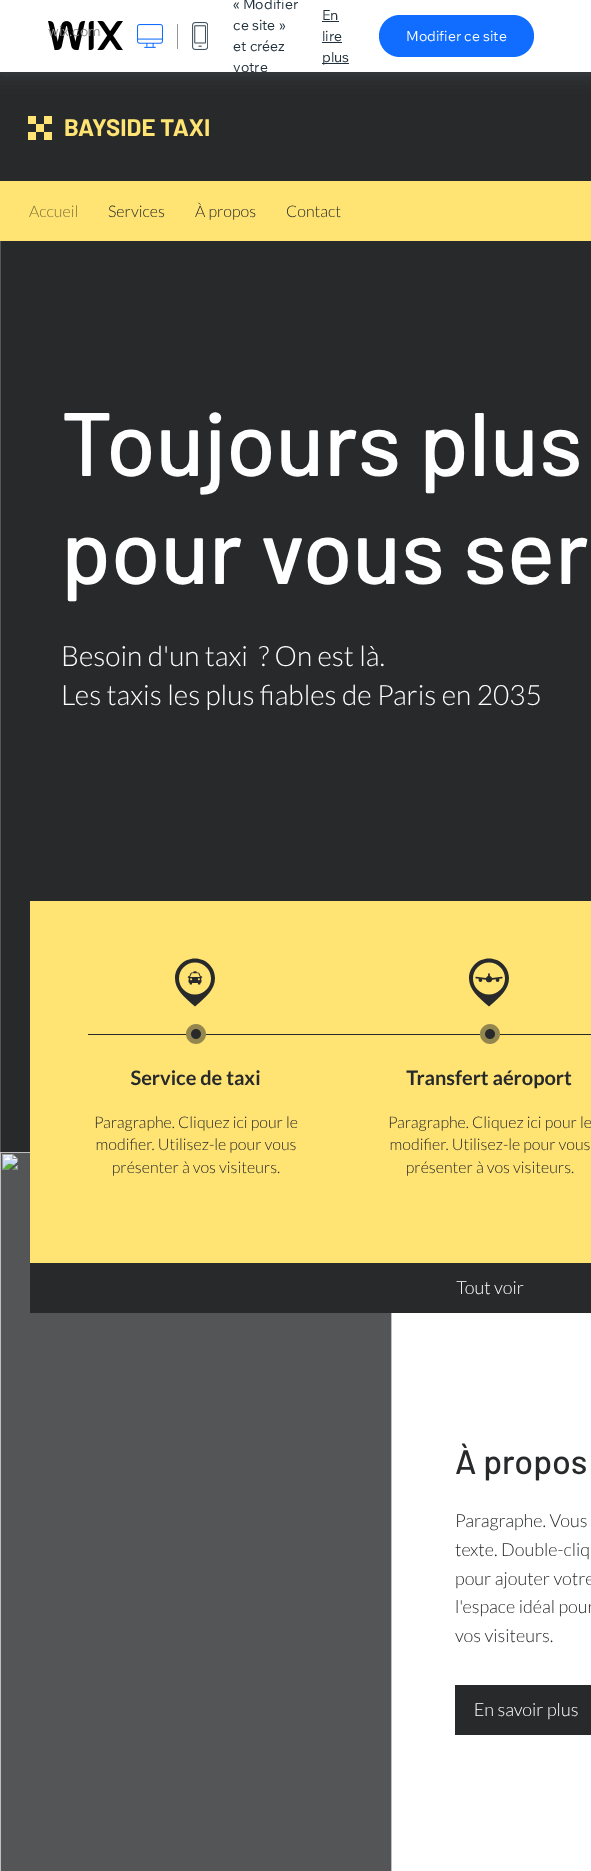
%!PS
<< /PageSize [591 1871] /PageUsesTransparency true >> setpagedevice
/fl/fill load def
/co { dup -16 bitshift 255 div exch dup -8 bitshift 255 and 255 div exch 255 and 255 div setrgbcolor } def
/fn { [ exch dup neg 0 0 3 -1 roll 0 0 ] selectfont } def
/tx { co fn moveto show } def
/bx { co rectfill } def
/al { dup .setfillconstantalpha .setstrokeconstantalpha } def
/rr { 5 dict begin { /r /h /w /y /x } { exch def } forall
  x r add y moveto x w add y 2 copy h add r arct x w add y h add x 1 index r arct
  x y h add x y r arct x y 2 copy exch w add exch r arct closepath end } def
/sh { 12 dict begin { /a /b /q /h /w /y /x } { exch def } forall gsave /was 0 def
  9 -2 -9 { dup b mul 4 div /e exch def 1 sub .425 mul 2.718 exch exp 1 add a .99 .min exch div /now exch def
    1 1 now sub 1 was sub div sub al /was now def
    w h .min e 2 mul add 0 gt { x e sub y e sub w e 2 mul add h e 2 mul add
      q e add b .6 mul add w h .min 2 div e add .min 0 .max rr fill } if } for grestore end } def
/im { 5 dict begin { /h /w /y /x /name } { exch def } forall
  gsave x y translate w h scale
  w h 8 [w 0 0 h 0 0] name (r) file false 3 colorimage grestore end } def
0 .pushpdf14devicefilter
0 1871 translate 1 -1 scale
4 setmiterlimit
0 0 591 1871 16#FFFFFF bx
(media/4.raw) 0 72 591 1799 im
16#81A2B6 co
0 2 591 72 0 9 .2 sh
0 0 591 72 16#FFFFFF bx
(media/1.raw) 48 21 75 29 im
(media/2.raw) 137 24 26 24 im
177 24 1 25 16#90989E bx
(media/3.raw) 192 22 16 28 im
322 21 17 1 16#20303C bx
322 42 20 1 16#20303C bx
322 63 27 1 16#20303C bx
16#116DFF co
379 15 155 42 21 rr fl
(wix.com) 48 36 /WixMadeforText-Regular 14 16#8F8F8F tx
(« Modifier) 233 9 /WixMadeforText-Regular 14 16#20303C tx
(ce site ») 233 30 /WixMadeforText-Regular 14 16#20303C tx
(et créez) 233 51 /WixMadeforText-Regular 14 16#20303C tx
(votre) 233 72 /WixMadeforText-Regular 14 16#20303C tx
(En) 322 20 /WixMadeforText-Regular 14 16#20303C tx
(lire) 322 41 /WixMadeforText-Regular 14 16#20303C tx
(plus) 322 62 /WixMadeforText-Regular 14 16#20303C tx
(Modifier ce site) 406 41 /WixMadeforText-Regular 14 16#FFFFFF tx
.poppdf14devicefilter showpage
